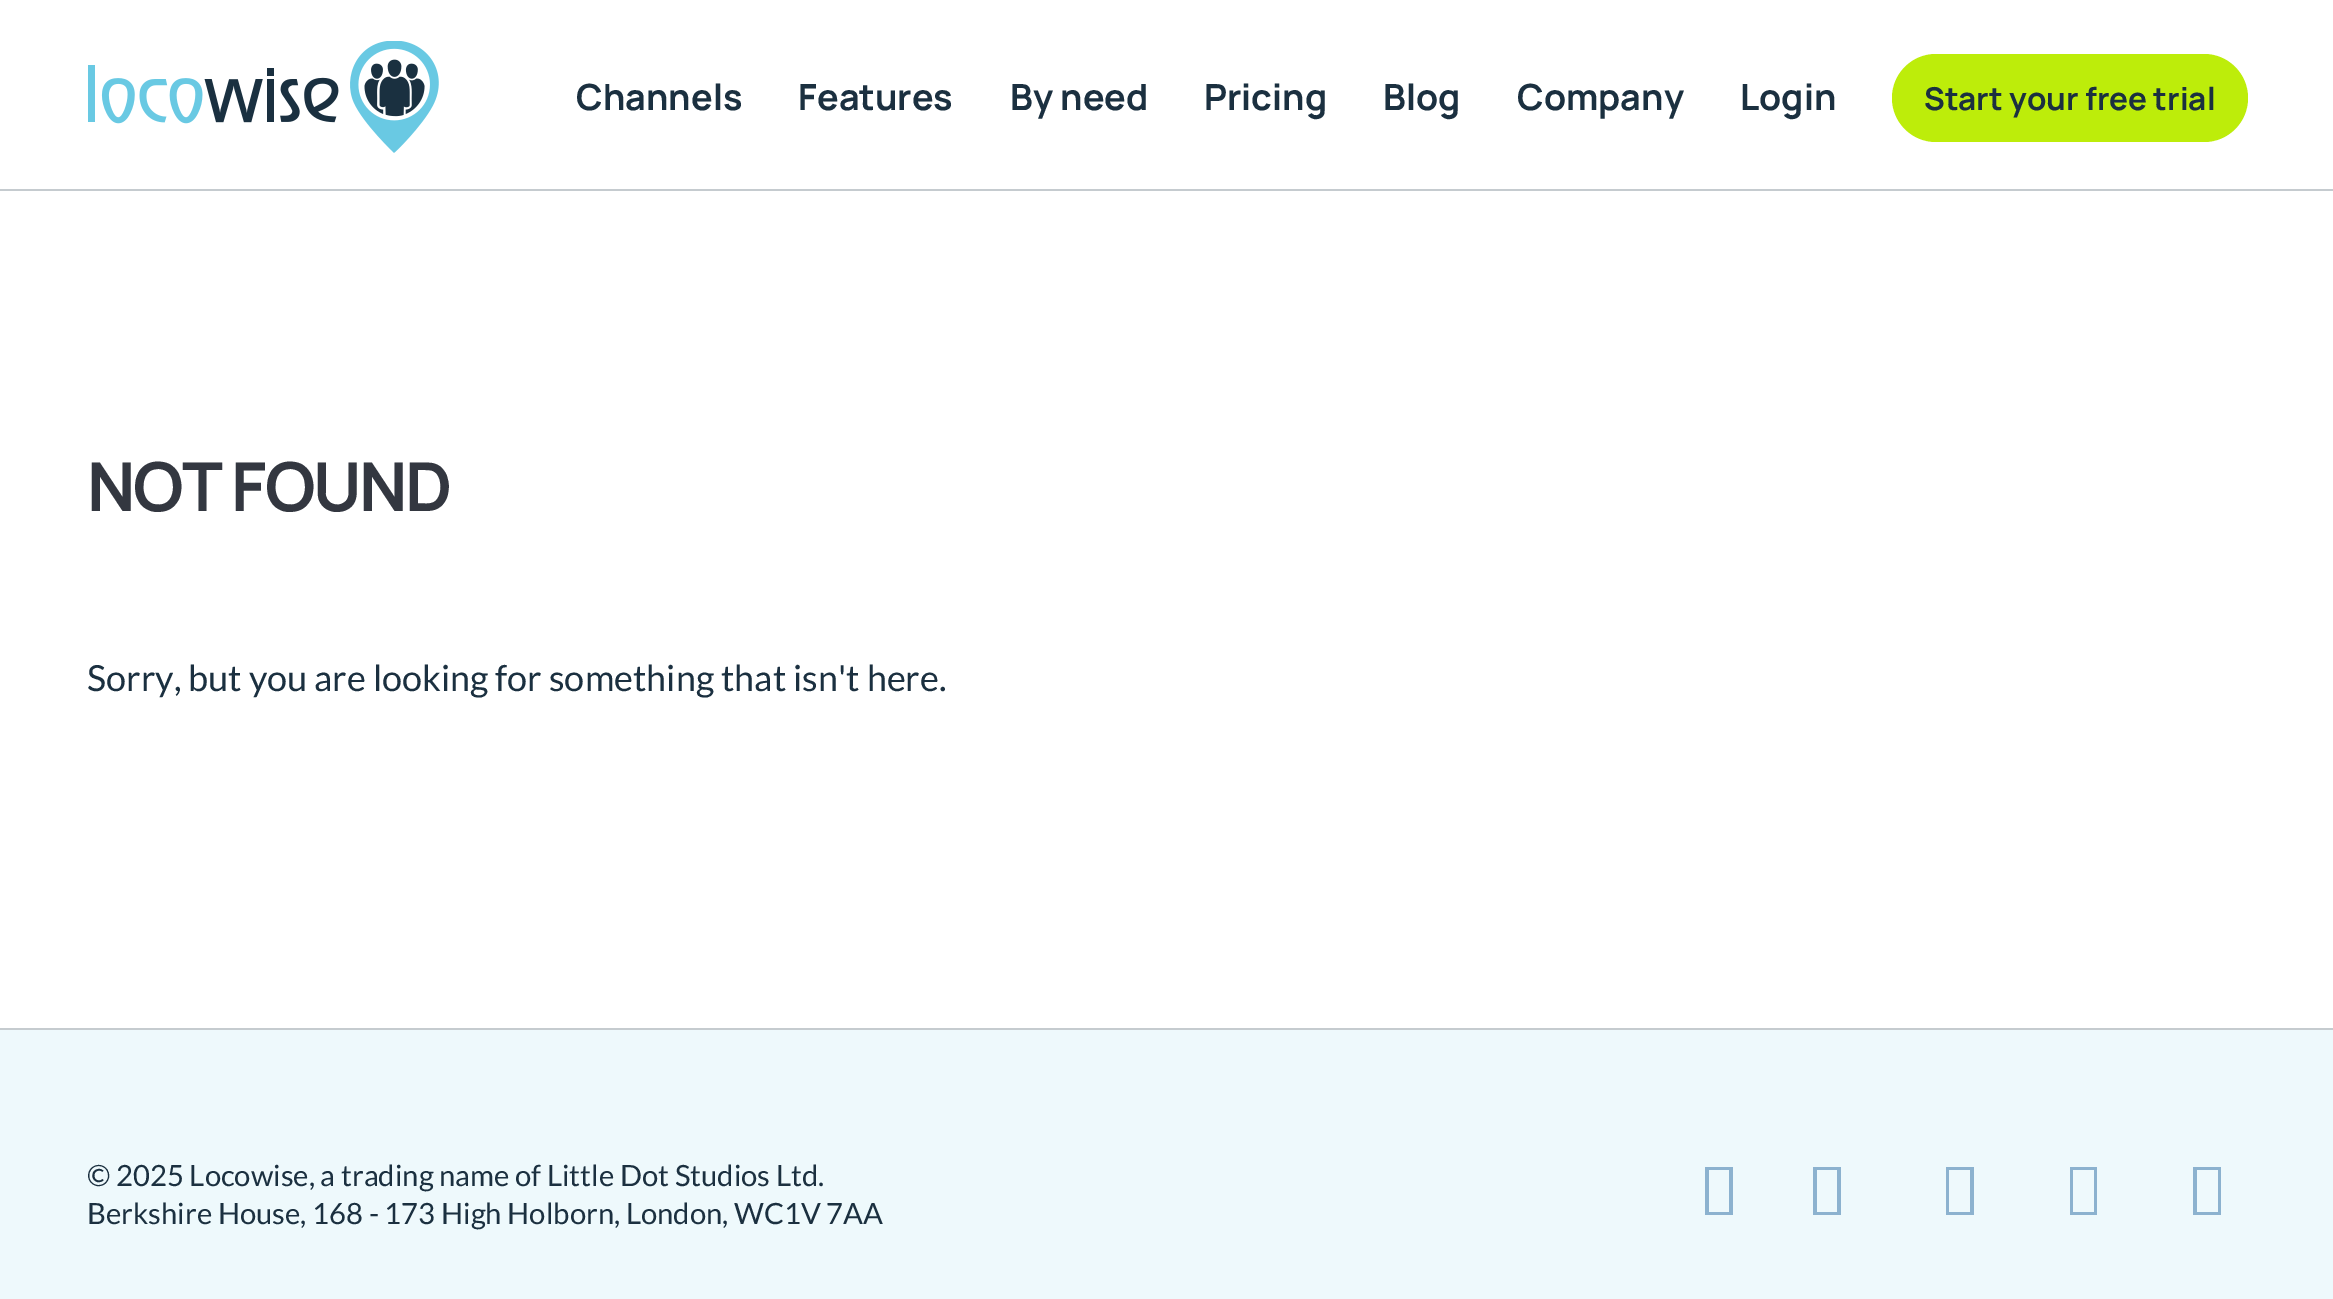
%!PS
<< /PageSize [2333 1299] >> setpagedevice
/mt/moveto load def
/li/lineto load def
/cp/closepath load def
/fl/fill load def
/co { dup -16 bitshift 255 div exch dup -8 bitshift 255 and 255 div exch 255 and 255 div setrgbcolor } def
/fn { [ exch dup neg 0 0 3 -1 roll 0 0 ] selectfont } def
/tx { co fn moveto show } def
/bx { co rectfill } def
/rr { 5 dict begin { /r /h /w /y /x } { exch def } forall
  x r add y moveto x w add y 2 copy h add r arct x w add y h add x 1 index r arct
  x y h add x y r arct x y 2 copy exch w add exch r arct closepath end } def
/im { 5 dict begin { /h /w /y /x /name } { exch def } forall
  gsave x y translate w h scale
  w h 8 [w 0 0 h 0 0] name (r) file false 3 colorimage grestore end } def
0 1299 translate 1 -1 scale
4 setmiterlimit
0 0 2333 1299 16#FFFFFF bx
0 189 2333 2 16#C5CBCF bx
(media/1.raw) 88 41 351 112 im
16#BDED0A co
1892 54 356 88 44 rr fl
0 1030 2333 269 16#EEF9FC bx
0 1028 2333 2 16#C5CBCF bx
16#8CB2CF co
1705 1215 mt 1705 1167 li 1733 1167 li 1733 1215 li cp 1709 1212 mt 1729 1212 li 1729 1170 li 1709 1170 li cp fl
1813 1215 mt 1813 1167 li 1841 1167 li 1841 1215 li cp 1817 1212 mt 1837 1212 li 1837 1170 li 1817 1170 li cp fl
1946 1215 mt 1946 1167 li 1974 1167 li 1974 1215 li cp 1949 1212 mt 1970 1212 li 1970 1170 li 1949 1170 li cp fl
2070 1215 mt 2070 1167 li 2097 1167 li 2097 1215 li cp 2073 1212 mt 2094 1212 li 2094 1170 li 2073 1170 li cp fl
2193 1215 mt 2193 1167 li 2221 1167 li 2221 1215 li cp 2197 1212 mt 2218 1212 li 2218 1170 li 2197 1170 li cp fl
(Channels) 576 110 /Manrope-Bold 36 16#1B3040 tx
(Features) 798 110 /Manrope-Bold 36 16#1B3040 tx
(By need) 1010 110 /Manrope-Bold 36 16#1B3040 tx
(Pricing) 1204 110 /Manrope-Bold 36 16#1B3040 tx
(Blog) 1383 110 /Manrope-Bold 36 16#1B3040 tx
(Company) 1517 110 /Manrope-Bold 36 16#1B3040 tx
(Login) 1740 110 /Manrope-Bold 36 16#1B3040 tx
(Start your free trial) 1924 110 /Manrope-Bold 31.5 16#1B3040 tx
/Manrope-Bold 67.5 fn
16#333740 co
87 511 mt -2.25 0 (NOT FOUND) ashow
(Sorry, but you are looking for something that isn't here.) 87 691 /Lato-Regular 36 16#1B3040 tx
(© 2025 Locowise, a trading name of Little Dot Studios Ltd.) 87 1186 /Lato-Regular 29.25 16#1B3040 tx
(Berkshire House, 168 - 173 High Holborn, London, WC1V 7AA) 87 1224 /Lato-Regular 29.25 16#1B3040 tx
showpage
